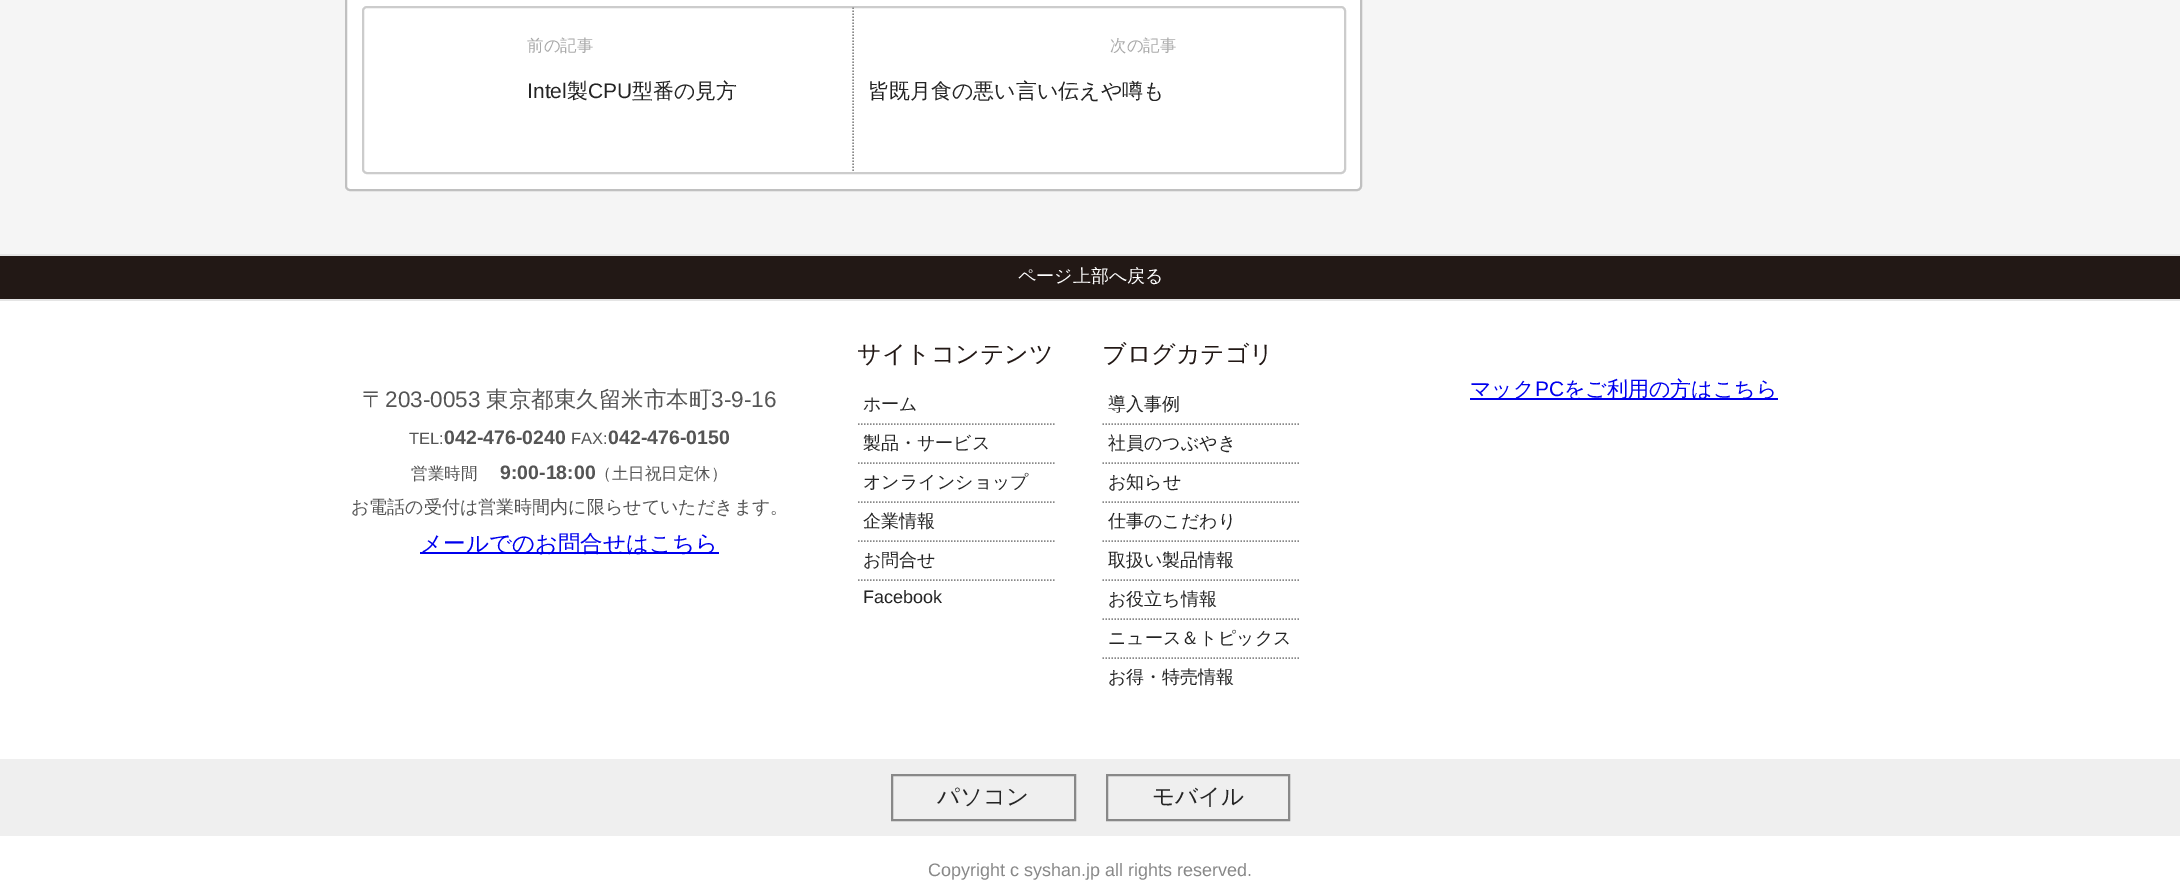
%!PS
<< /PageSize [2180 880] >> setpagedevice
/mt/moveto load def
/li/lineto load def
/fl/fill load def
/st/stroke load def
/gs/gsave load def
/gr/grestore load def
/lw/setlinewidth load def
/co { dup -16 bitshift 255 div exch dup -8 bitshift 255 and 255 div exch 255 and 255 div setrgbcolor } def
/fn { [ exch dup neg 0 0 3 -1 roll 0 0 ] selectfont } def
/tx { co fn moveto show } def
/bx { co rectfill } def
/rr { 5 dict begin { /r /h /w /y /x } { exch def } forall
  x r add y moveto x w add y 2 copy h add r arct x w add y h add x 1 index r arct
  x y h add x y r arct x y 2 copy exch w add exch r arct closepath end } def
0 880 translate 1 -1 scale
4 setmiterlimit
0 0 2180 880 16#F5F5F5 bx
16#FFFFFF co
346 -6 1015 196 4 rr gs fl gr
16#C0C0C0 co
2 lw
st
16#CCCCCC co
363 7 982 166 4 rr st
16#888888 co
1.5 lw
[1.5 1.5] 0 setdash
853 7.5 mt 853 172.5 li st
0 301 2180 458 16#FFFFFF bx
0 256 2180 43 16#221815 bx
0 254 2180 2 16#E5E5E5 bx
0 299 2180 2 16#E5E5E5 bx
420 552 299 2 16#0000EE bx
16#888888 co
858 424 mt 1054.5 424 li st
858 463 mt 1054.5 463 li st
858 502 mt 1054.5 502 li st
858 541 mt 1054.5 541 li st
858 580 mt 1054.5 580 li st
1102.5 424 mt 1299 424 li st
1102.5 463 mt 1299 463 li st
1102.5 502 mt 1299 502 li st
1102.5 541 mt 1299 541 li st
1102.5 580 mt 1299 580 li st
1102.5 619 mt 1299 619 li st
1102.5 658 mt 1299 658 li st
1470 398 308 2 16#0000EE bx
0 759 2180 77 16#EFEFEF bx
16#888888 co
2 lw
[] 0 setdash
892 775 183 45 rectstroke
1107 775 182 45 rectstroke
0 836 2180 44 16#FFFFFF bx
(前の記事) 527 51 /WenQuanYiZenHei-Medium 16.5 16#AAAAAA tx
(Intel) 527 98 /LiberationSans-Regular 21 16#242424 tx
(製) 567 98 /WenQuanYiZenHei-Medium 21 16#242424 tx
(CPU) 588 98 /LiberationSans-Regular 21 16#242424 tx
(型番の見方) 632 98 /WenQuanYiZenHei-Medium 21 16#242424 tx
(次の記事) 1110 51 /WenQuanYiZenHei-Medium 16.5 16#AAAAAA tx
(皆既月食の悪い言い伝えや噂も) 868 98 /WenQuanYiZenHei-Medium 21 16#242424 tx
(ページ上部へ戻る) 1018 282 /WenQuanYiZenHei-Medium 18 16#FFFFFF tx
(〒) 362 407 /WenQuanYiZenHei-Medium 22.5 16#555555 tx
(203-0053) 385 407 /LiberationSans-Regular 22.5 16#555555 tx
(東京都東久留米市本町) 486 407 /WenQuanYiZenHei-Medium 22.5 16#555555 tx
(3-9-16) 711 407 /LiberationSans-Regular 22.5 16#555555 tx
(TEL:) 409 444 /LiberationSans-Regular 16.5 16#555555 tx
(042-476-0240) 444 444 /LiberationSans-Bold 19.5 16#555555 tx
(FAX:) 571 444 /LiberationSans-Regular 16.5 16#555555 tx
(042-476-0150) 608 444 /LiberationSans-Bold 19.5 16#555555 tx
(営業時間) 411 479 /WenQuanYiZenHei-Medium 16.5 16#555555 tx
(9:00-18:00) 500 479 /LiberationSans-Bold 19.5 16#555555 tx
(（土日祝日定休）) 595 479 /WenQuanYiZenHei-Medium 16.5 16#555555 tx
(お電話の受付は営業時間内に限らせていただきます。) 351 513 /WenQuanYiZenHei-Medium 18 16#555555 tx
(メールでのお問合せはこちら) 420 551 /WenQuanYiZenHei-Medium 22.5 16#0000EE tx
(サイトコンテンツ) 857 362 /WenQuanYiZenHei-Medium 24 16#221815 tx
(ホーム) 863 410 /WenQuanYiZenHei-Medium 18 16#242424 tx
(製品・サービス) 863 449 /WenQuanYiZenHei-Medium 18 16#242424 tx
(オンラインショップ) 863 488 /WenQuanYiZenHei-Medium 18 16#242424 tx
(企業情報) 863 527 /WenQuanYiZenHei-Medium 18 16#242424 tx
(お問合せ) 863 566 /WenQuanYiZenHei-Medium 18 16#242424 tx
(Facebook) 863 603 /LiberationSans-Regular 18 16#242424 tx
(ブログカテゴリ) 1102 362 /WenQuanYiZenHei-Medium 24 16#221815 tx
(導入事例) 1108 410 /WenQuanYiZenHei-Medium 18 16#242424 tx
(社員のつぶやき) 1108 449 /WenQuanYiZenHei-Medium 18 16#242424 tx
(お知らせ) 1108 488 /WenQuanYiZenHei-Medium 18 16#242424 tx
(仕事のこだわり) 1108 527 /WenQuanYiZenHei-Medium 18 16#242424 tx
(取扱い製品情報) 1108 566 /WenQuanYiZenHei-Medium 18 16#242424 tx
(お役立ち情報) 1108 605 /WenQuanYiZenHei-Medium 18 16#242424 tx
(ニュース＆トピックス) 1108 644 /WenQuanYiZenHei-Medium 18 16#242424 tx
(お得・特売情報) 1108 683 /WenQuanYiZenHei-Medium 18 16#242424 tx
(マック) 1470 396 /WenQuanYiZenHei-Medium 21 16#0000EE tx
(PC) 1535 396 /LiberationSans-Regular 21 16#0000EE tx
(をご利用の方はこちら) 1564 396 /WenQuanYiZenHei-Medium 21 16#0000EE tx
(パソコン) 937 804 /WenQuanYiZenHei-Medium 22.5 16#242424 tx
(モバイル) 1152 804 /WenQuanYiZenHei-Medium 22.5 16#242424 tx
(Copyright c syshan.jp all rights reserved.) 928 876 /LiberationSans-Regular 18 16#888888 tx
showpage
